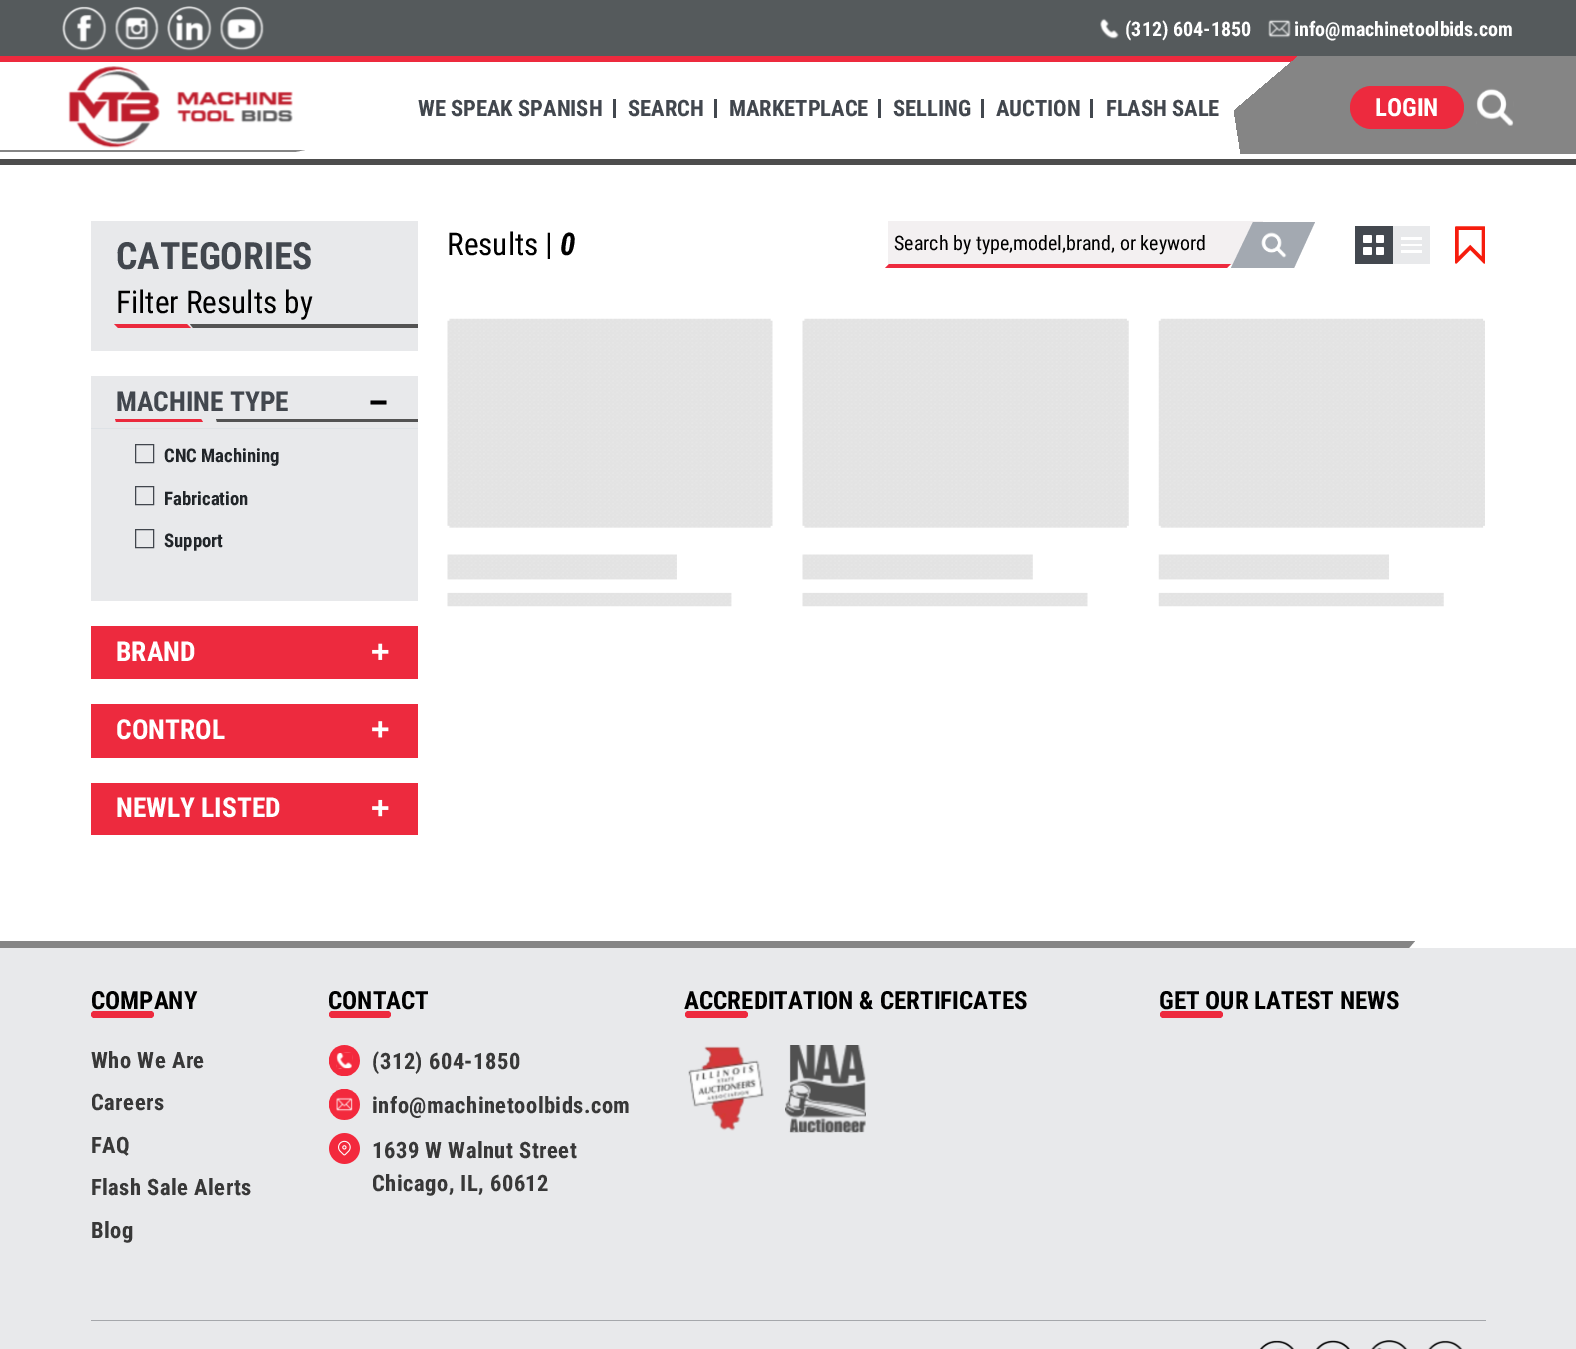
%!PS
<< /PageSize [1576 1349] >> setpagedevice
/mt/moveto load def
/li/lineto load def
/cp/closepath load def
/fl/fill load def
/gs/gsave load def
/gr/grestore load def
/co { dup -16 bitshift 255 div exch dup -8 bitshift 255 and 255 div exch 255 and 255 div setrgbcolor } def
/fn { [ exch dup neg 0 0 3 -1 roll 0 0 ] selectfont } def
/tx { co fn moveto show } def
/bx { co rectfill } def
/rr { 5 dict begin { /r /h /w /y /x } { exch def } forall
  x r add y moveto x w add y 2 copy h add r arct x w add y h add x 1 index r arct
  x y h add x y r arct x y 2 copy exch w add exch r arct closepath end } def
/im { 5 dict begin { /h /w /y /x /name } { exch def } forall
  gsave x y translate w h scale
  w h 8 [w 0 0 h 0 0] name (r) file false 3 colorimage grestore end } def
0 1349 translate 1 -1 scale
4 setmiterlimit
0 0 1576 1349 16#FFFFFF bx
0 0 1576 56 16#555A5C bx
(media/1.raw) 62 6 45 45 im
(media/2.raw) 115 6 44 45 im
(media/3.raw) 167 6 45 45 im
(media/4.raw) 220 6 44 45 im
(media/5.raw) 1100 18 19 21 im
(media/6.raw) 1268 19 23 19 im
0 159 1576 6 16#4D4D4D bx
16#ED2A3E co
-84 56 mt 1492 56 li 1485 62 li -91 62 li cp fl
(media/7.raw) 68 66 225 82 im
16#858585 co
-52 150 mt 305 150 li 295 152 li -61 152 li cp fl
613 99 3 19 16#42474E bx
714 99 3 19 16#42474E bx
878 99 3 19 16#42474E bx
981 99 3 19 16#42474E bx
1090 99 3 19 16#42474E bx
91 221 327 130 16#E8E9EB bx
gs
91 221 327 130 rectclip
16#535353 co
190 324 mt 604 324 li 608 328 li 193 328 li cp fl
gr
16#EB2A3D co
114 324 mt 187 324 li 191 328 li 118 328 li cp fl
91 376 327 52 16#E8E9EB bx
91 428 327 1 16#DEE2E6 bx
16#000000 co
370.5 404.5 mt 370.5 400.5 li 386.5 400.5 li 386.5 404.5 li fl
16#EB2A3D co
115 419 mt 201 419 li 203 422 li 116 422 li cp fl
gs
91 376 327 53 rectclip
16#535353 co
216 419 mt 528 419 li 529 422 li 217 422 li cp fl
gr
91 429 327 172 16#E8E9EB bx
16#41464D co
135.5 444.5 18 18 rectstroke
135.5 486.5 18 18 rectstroke
135.5 529.5 18 18 rectstroke
91 626 327 53 16#ED2A3E bx
(media/9.raw) 372 643 17 17 im
91 704 327 54 16#ED2A3E bx
(media/10.raw) 372 721 17 17 im
91 783 327 52 16#ED2A3E bx
(media/11.raw) 372 799 17 18 im
888 221 375 44 16#F3F0F1 bx
16#A3A9B1 co
1253 222 mt 1315 222 li 1294 268 li 1231 268 li cp fl
(media/12.raw) 1261 232 26 26 im
16#ED2A3E co
889 264 mt 1231 264 li 1227 268 li 885 268 li cp fl
1355 226 38 38 16#43484F bx
16#FFFFFF co
1363 235 9 8 1.5 rr fl
1363 247 9 8 1.5 rr fl
1376 235 8 8 1.5 rr fl
1376 247 8 8 1.5 rr fl
1393 226 37 38 16#E8E9EB bx
1401 237 21 3 16#FFFFFF bx
1401 244 21 2 16#FFFFFF bx
1401 250 21 3 16#FFFFFF bx
(media/13.raw) 1455 226 30 38 im
(media/14.raw) 447 318 326 289 im
(media/15.raw) 802 318 327 289 im
(media/16.raw) 1158 318 327 289 im
0 948 1576 401 16#E8E9EB bx
16#858585 co
-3 941 mt 1415 941 li 1409 948 li -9 948 li cp fl
16#ED2A3E co
91 1011 63 7 3.5 rr fl
329 1011 62 7 3.5 rr fl
(media/17.raw) 329 1045 31 31 im
(media/18.raw) 329 1089 31 31 im
(media/19.raw) 329 1133 31 31 im
685 1011 63 7 3.5 rr fl
(media/20.raw) 688 1046 76 85 im
(media/21.raw) 785 1045 81 88 im
1160 1011 63 7 3.5 rr fl
91 1320 1395 1 16#A5A7AB bx
(media/22.raw) 1259 1340 35 9 im
(media/23.raw) 1316 1340 34 9 im
(media/24.raw) 1371 1340 37 9 im
(media/25.raw) 1428 1340 35 9 im
(\(312\) 604-1850) 1125 36 /RobotoCondensed-Bold 20 16#FFFFFF tx
(info@machinetoolbids.com) 1294 36 /RobotoCondensed-Bold 20 16#FFFFFF tx
(WE SPEAK SPANISH) 418 116 /RobotoCondensed-Bold 22.5 16#42474E tx
(SEARCH) 628 116 /RobotoCondensed-Bold 22.5 16#42474E tx
(MARKETPLACE) 729 116 /RobotoCondensed-Bold 22.5 16#42474E tx
(SELLING) 893 116 /RobotoCondensed-Bold 22.5 16#42474E tx
(AUCTION) 996 116 /RobotoCondensed-Bold 22.5 16#42474E tx
(FLASH SALE) 1106 116 /RobotoCondensed-Bold 22.5 16#42474E tx
gs 1299 56 mt 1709 56 li 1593 154 li 1183 154 li cp clip newpath
<< /ShadingType 2 /ColorSpace /DeviceRGB /Coords [1192 145 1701 65] /Extend [true true] /Function << /FunctionType 3 /Domain [0 1] /Functions [<< /FunctionType 2 /Domain [0 1] /C0 [1 1 1] /C1 [1 1 1] /N 1 >> << /FunctionType 2 /Domain [0 1] /C0 [.522 .522 .522] /C1 [.522 .522 .522] /N 1 >>] /Bounds [.09] /Encode [0 1 0 1] >> >> shfill gr
16#ED2A3E co
1350 86 114 43 21.5 rr fl
(LOGIN) 1375 116 /RobotoCondensed-Bold 25 16#FFFFFF tx
(media/8.raw) 1476 88 38 38 im
(CATEGORIES) 116 269 /RobotoCondensed-Bold 37.5 16#42474E tx
(Filter Results by) 116 313 /RobotoCondensed-Regular 31.25 16#000000 tx
(MACHINE TYPE) 116 411 /RobotoCondensed-Bold 27.5 16#42474E tx
(CNC Machining) 164 462 /RobotoCondensed-Bold 18.75 16#212529 tx
(Fabrication) 164 505 /RobotoCondensed-Bold 18.75 16#212529 tx
(Support) 164 547 /RobotoCondensed-Bold 18.75 16#212529 tx
(BRAND) 116 661 /RobotoCondensed-Bold 27.5 16#FFFFFF tx
(CONTROL) 116 739 /RobotoCondensed-Bold 27.5 16#FFFFFF tx
(NEWLY LISTED) 116 817 /RobotoCondensed-Bold 27.5 16#FFFFFF tx
(Results |) 447 255 /RobotoCondensed-Regular 31.25 16#000000 tx
(0) 560 255 /RobotoCondensed-BoldItalic 31.25 16#000000 tx
(Search by type,model,brand, or keyword) 894 250 /RobotoCondensed-Regular 20 16#000000 tx
(COMPANY) 91 1009 /RobotoCondensed-Bold 25 16#000000 tx
/RobotoCondensed-Bold 22.5 fn
16#383838 co
91 1068 mt .5 0 (Who We Are) ashow
91 1110 mt .5 0 (Careers) ashow
91 1153 mt .5 0 (FAQ) ashow
91 1195 mt .5 0 (Flash Sale Alerts) ashow
91 1238 mt .5 0 (Blog) ashow
(CONTACT) 328 1009 /RobotoCondensed-Bold 25 16#000000 tx
/RobotoCondensed-Bold 22.5 fn
16#383838 co
372 1069 mt .5 0 (\(312\) 604-1850) ashow
372 1113 mt .5 0 (info@machinetoolbids.com) ashow
372 1158 mt .5 0 (1639 W Walnut Street) ashow
372 1191 mt .5 0 (Chicago, IL, 60612) ashow
(ACCREDITATION & CERTIFICATES) 684 1009 /RobotoCondensed-Bold 25 16#000000 tx
(GET OUR LATEST NEWS) 1159 1009 /RobotoCondensed-Bold 25 16#000000 tx
showpage
